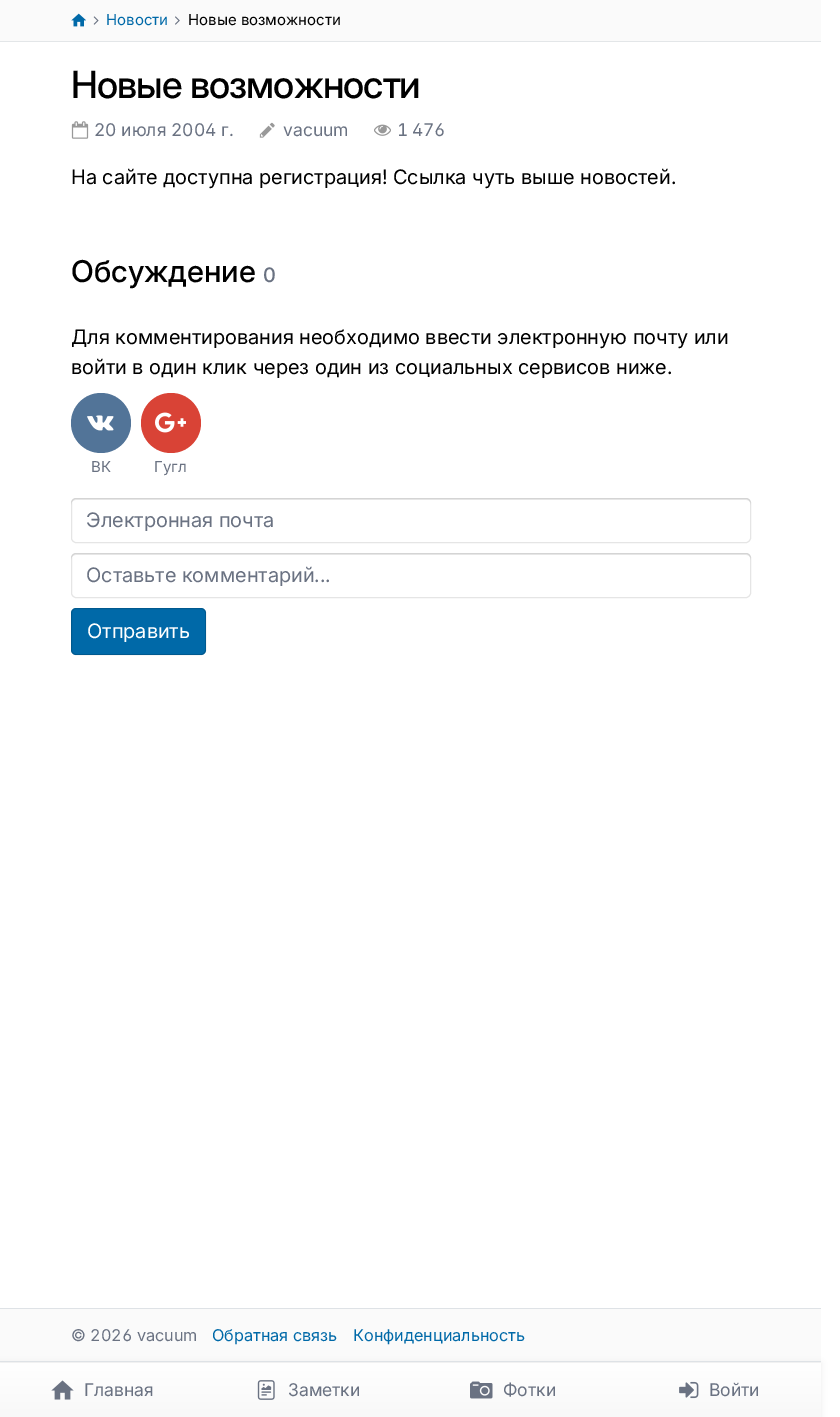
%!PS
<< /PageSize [840 1417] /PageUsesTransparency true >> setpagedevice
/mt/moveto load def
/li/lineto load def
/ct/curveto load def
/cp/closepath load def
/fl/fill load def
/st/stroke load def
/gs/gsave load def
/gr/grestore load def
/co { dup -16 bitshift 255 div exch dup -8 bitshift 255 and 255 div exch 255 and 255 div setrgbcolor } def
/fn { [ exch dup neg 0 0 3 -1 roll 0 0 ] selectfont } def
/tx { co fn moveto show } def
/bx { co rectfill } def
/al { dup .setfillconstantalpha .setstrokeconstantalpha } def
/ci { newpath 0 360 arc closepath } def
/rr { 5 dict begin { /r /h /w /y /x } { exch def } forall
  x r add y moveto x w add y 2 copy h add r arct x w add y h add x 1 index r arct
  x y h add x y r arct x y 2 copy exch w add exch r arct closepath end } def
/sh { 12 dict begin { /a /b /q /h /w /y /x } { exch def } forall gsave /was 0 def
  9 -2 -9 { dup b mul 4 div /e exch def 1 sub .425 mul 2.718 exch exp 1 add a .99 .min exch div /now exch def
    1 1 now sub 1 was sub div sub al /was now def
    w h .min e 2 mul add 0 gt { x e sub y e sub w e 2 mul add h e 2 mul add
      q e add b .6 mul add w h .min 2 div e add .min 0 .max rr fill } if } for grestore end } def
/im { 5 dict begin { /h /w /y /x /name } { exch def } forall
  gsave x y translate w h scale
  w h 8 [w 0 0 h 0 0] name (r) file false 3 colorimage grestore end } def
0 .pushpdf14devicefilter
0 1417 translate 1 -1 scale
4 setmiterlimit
0 0 840 1417 16#FFFFFF bx
0 0 821 41 16#FAFAFA bx
0 41 821 1 16#E3E6E8 bx
(media/1.raw) 71 13 15 14 im
(media/2.raw) 93 16 6 9 im
(media/3.raw) 175 16 5 9 im
(media/4.raw) 71 121 18 18 im
(media/5.raw) 259 122 16 16 im
(media/6.raw) 374 124 17 12 im
16#527498 co
101 423 30 ci fl
(media/7.raw) 87 415 27 16 im
16#D94336 co
171 423 30 ci fl
(media/8.raw) 155 412 31 21 im
16#ECECEC co
76 500 mt 746 500 li 749 500 751 502 751 505 ct 751 503 li 751 500 749 498 746 498 ct 76 498 li 73 498 71 500 71 503 ct 71 505 li 71 502 73 500 76 500 ct cp fl
0.1 al
16#000000 co
71.5 498.5 679 44 4.5 rr st
1 al
16#ECECEC co
76 555 mt 746 555 li 749 555 751 557 751 560 ct 751 558 li 751 555 749 553 746 553 ct 76 553 li 73 553 71 555 71 558 ct 71 560 li 71 557 73 555 76 555 ct cp fl
0.1 al
16#000000 co
71.5 553.5 679 44 4.5 rr st
1 al
16#0069A8 co
71 608 135 47 5 rr fl
0.15 al
16#000000 co
71.5 608.5 134 46 4.5 rr st
1 al
0 1309 821 54 16#FAFAFA bx
0 1308 821 1 16#DEE2E6 bx
16#000000 co
0 1363 821 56 0 3 .07 sh
gs 0 1363 mt 821 1363 li 821 1417 li 0 1417 li cp clip newpath
<< /ShadingType 2 /ColorSpace /DeviceRGB /Coords [411 1363 411 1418] /Extend [true true] /Function << /FunctionType 2 /Domain [0 1] /C0 [1 1 1] /C1 [.973 .973 .973] /N 1 >> >> shfill gr
0 1361 821 1 16#DEE2E6 bx
(media/9.raw) 51 1380 23 20 im
(media/10.raw) 257 1380 18 20 im
(media/11.raw) 470 1381 23 18 im
(media/12.raw) 679 1381 20 18 im
(Новости) 106 25 /Inter-Regular 15 16#0069A8 tx
(Новые возможности) 188 25 /Inter-Regular 15 16#000000 tx
/Inter-Medium 37.5 fn
71 98 mt -.9 0 (Новые возможности) ashow
(20 июля 2004 г.) 94 136 /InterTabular-Regular 17.5 16#6A7282 tx
(vacuum) 283 136 /Inter-Regular 17.5 16#6A7282 tx
(1 476) 397 136 /InterTabular-Regular 17.5 16#6A7282 tx
(На сайте доступна регистрация! Ссылка чуть выше новостей.) 71 184 /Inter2-Regular 20 16#000000 tx
(Обсуждение) 71 282 /Inter2-Medium 30 16#000000 tx
(0) 263 282 /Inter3-Medium 20 16#6A7282 tx
(Для комментирования необходимо ввести электронную почту или) 71 344 /Inter2-Regular 20 16#000000 tx
(войти в один клик через один из социальных сервисов ниже.) 71 374 /Inter2-Regular 20 16#000000 tx
(ВК) 91 472 /Inter-Regular 15 16#6A7282 tx
(Гугл) 154 472 /Inter-Regular 15 16#6A7282 tx
(Электронная почта) 86 527 /Inter2-Regular 20 16#6A7282 tx
(Оставьте комментарий...) 86 582 /Inter2-Regular 20 16#6A7282 tx
(Отправить) 87 638 /Inter2-Regular 20 16#FFFFFF tx
(© 2026 vacuum) 71 1341 /InterTabular-Regular 16.25 16#6A7282 tx
(Обратная связь) 212 1341 /Inter-Regular 16.25 16#0069A8 tx
(Конфиденциальность) 353 1341 /Inter-Regular 16.25 16#0069A8 tx
(Главная) 84 1396 /Inter-Regular 17.5 16#6A7282 tx
(Заметки) 288 1396 /Inter-Regular 17.5 16#6A7282 tx
(Фотки) 503 1396 /Inter-Regular 17.5 16#6A7282 tx
(Войти) 709 1396 /Inter-Regular 17.5 16#6A7282 tx
.poppdf14devicefilter showpage
